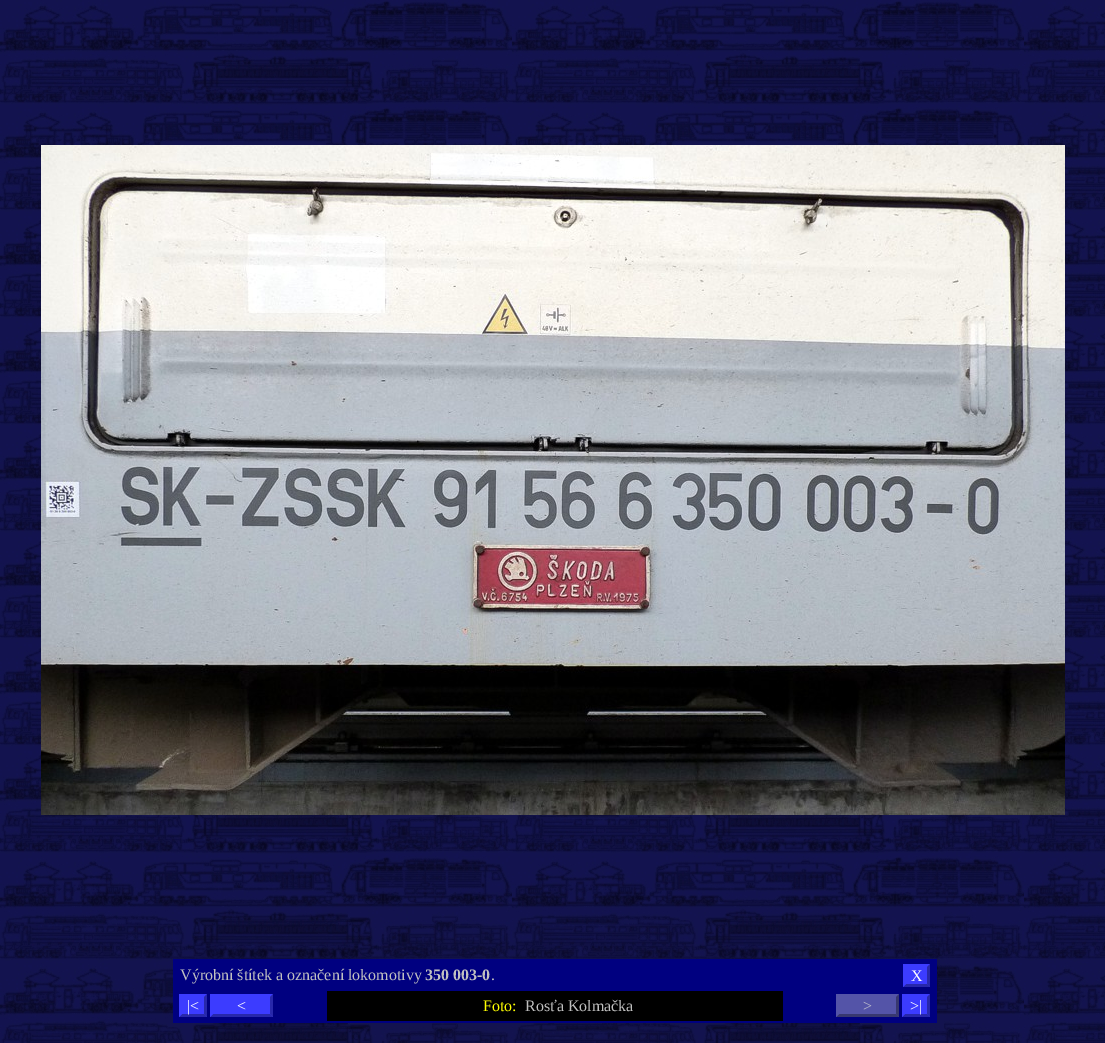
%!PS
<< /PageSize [1105 1043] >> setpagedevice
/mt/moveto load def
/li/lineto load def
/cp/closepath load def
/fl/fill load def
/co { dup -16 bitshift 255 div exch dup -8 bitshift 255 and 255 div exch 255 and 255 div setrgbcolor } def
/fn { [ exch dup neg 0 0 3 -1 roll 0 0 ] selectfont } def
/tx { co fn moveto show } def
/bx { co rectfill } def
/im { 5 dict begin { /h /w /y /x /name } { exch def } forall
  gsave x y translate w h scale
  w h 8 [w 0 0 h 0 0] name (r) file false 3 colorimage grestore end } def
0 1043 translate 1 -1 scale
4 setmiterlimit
0 0 1105 1043 16#FFFFFF bx
(media/1.raw) 0 0 1105 1043 im
(media/2.raw) 41 145 1024 670 im
173 959 764 64 16#000080 bx
903 964 27 23 16#3C3CFF bx
16#2828AA co
930 964 mt 930 987 li 927 984 li 927 967 li cp fl
930 987 mt 903 987 li 906 984 li 927 984 li cp fl
16#3C3CFF co
903 987 mt 903 964 li 906 967 li 906 984 li cp fl
179 994 28 23 16#3C3CFF bx
16#2828AA co
207 994 mt 207 1017 li 204 1014 li 204 997 li cp fl
207 1017 mt 179 1017 li 182 1014 li 204 1014 li cp fl
16#3C3CFF co
179 1017 mt 179 994 li 182 997 li 182 1014 li cp fl
210 994 63 23 16#3C3CFF bx
16#2828AA co
273 994 mt 273 1017 li 270 1014 li 270 997 li cp fl
273 1017 mt 210 1017 li 213 1014 li 270 1014 li cp fl
16#3C3CFF co
210 1017 mt 210 994 li 213 997 li 213 1014 li cp fl
327 991 456 30 16#000000 bx
836 994 63 23 16#5454A8 bx
16#383870 co
899 994 mt 899 1017 li 896 1014 li 896 997 li cp fl
899 1017 mt 836 1017 li 839 1014 li 896 1014 li cp fl
16#5454A8 co
836 1017 mt 836 994 li 839 997 li 839 1014 li cp fl
902 994 28 23 16#3C3CFF bx
16#2828AA co
930 994 mt 930 1017 li 927 1014 li 927 997 li cp fl
930 1017 mt 902 1017 li 905 1014 li 927 1014 li cp fl
16#3C3CFF co
902 1017 mt 902 994 li 905 997 li 905 1014 li cp fl
(Výrobní štítek a označení lokomotivy) 180 980 /LiberationSerif-Regular 16 16#C0C0C0 tx
(350 003-0) 425 980 /LiberationSerif-Bold 16 16#C0C0C0 tx
(.) 491 980 /LiberationSerif-Regular 16 16#C0C0C0 tx
(X) 911 981 /LiberationSerif-Regular 16 16#FFFFFF tx
(|<) 187 1011 /LiberationSerif-Regular 16 16#FFFFFF tx
(<) 237 1011 /LiberationSerif-Regular 16 16#FFFFFF tx
(Foto:) 483 1011 /LiberationSerif-Regular 16 16#FFFF00 tx
(Rosťa Kolmačka) 525 1011 /LiberationSerif-Regular 16 16#C0C0C0 tx
(>) 863 1011 /LiberationSerif-Regular 16 16#BABACC tx
(>|) 910 1011 /LiberationSerif-Regular 16 16#FFFFFF tx
showpage
